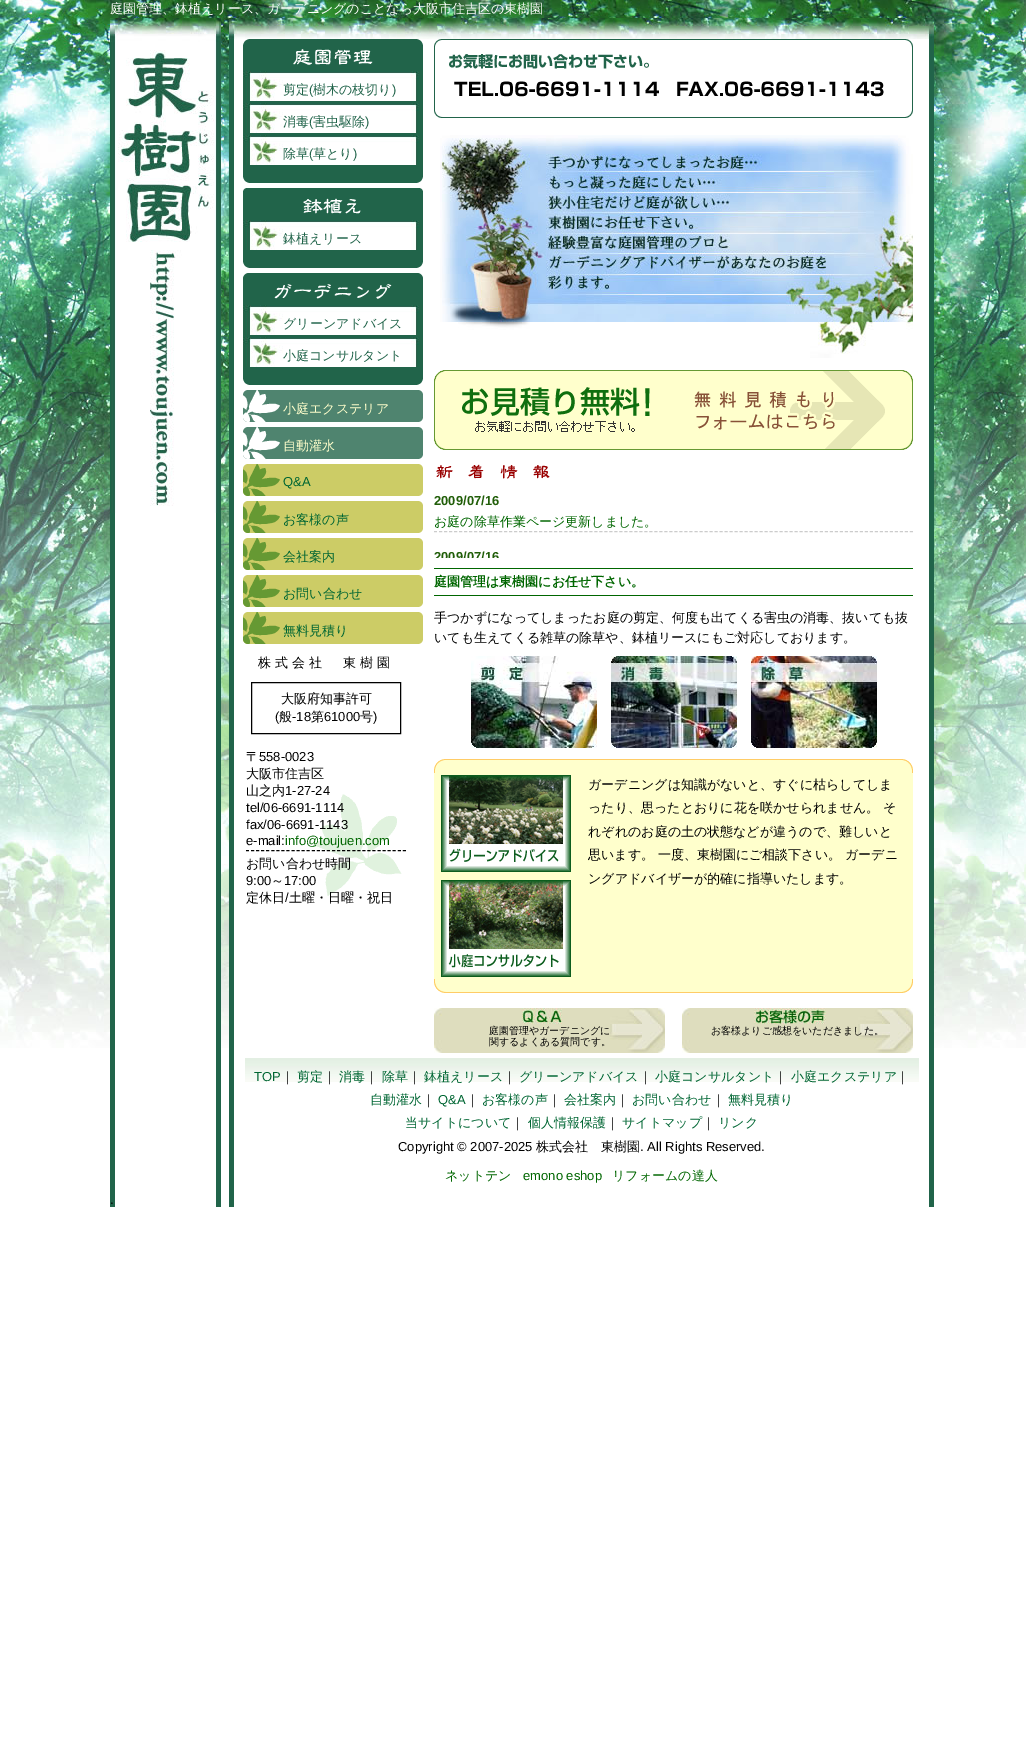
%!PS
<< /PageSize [1026 1748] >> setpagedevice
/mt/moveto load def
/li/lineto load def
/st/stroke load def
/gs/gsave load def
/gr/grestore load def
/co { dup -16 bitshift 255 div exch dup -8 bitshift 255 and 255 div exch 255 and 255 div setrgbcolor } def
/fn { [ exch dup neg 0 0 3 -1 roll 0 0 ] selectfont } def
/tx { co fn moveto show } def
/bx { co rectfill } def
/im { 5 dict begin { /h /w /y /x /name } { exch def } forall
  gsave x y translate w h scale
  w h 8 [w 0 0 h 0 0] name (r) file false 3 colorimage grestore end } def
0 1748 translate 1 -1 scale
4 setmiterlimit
0 0 1026 1748 16#FFFFFF bx
(media/1.raw) 0 0 1026 1048 im
(media/2.raw) 110 39 824 1168 im
(media/3.raw) 110 18 111 495 im
(media/4.raw) 229 18 705 21 im
(media/5.raw) 243 167 180 16 im
(media/6.raw) 243 39 180 32 im
(media/7.raw) 243 71 180 30 im
243 101 180 2 16#21644A bx
(media/7.raw) 243 103 180 30 im
243 133 180 2 16#21644A bx
(media/7.raw) 243 135 180 30 im
243 165 180 2 16#21644A bx
(media/5.raw) 243 252 180 16 im
(media/8.raw) 243 188 180 32 im
(media/7.raw) 243 220 180 30 im
243 250 180 2 16#21644A bx
(media/5.raw) 243 369 180 16 im
(media/9.raw) 243 273 180 32 im
(media/7.raw) 243 305 180 30 im
243 335 180 2 16#21644A bx
(media/7.raw) 243 337 180 30 im
243 367 180 2 16#21644A bx
(media/10.raw) 243 390 180 32 im
(media/10.raw) 243 427 180 32 im
(media/11.raw) 243 464 180 32 im
(media/11.raw) 243 501 180 32 im
(media/11.raw) 243 538 180 32 im
(media/11.raw) 243 575 180 32 im
(media/11.raw) 243 612 180 32 im
16#000000 co
251.5 682.5 149 51 rectstroke
(media/12.raw) 313 794 89 102 im
[3 2.06] 0 setdash
246 850.5 mt 406 850.5 li st
(media/13.raw) 434 39 479 79 im
(media/14.raw) 440 135 473 223 im
(media/15.raw) 434 370 479 80 im
(media/16.raw) 436 464 114 15 im
16#CCCCCC co
[3 2.01] 0 setdash
434 531.5 mt 913 531.5 li st
434 568 479 1 16#006600 bx
434 595 479 1 16#006600 bx
(media/17.raw) 471 656 126 92 im
(media/18.raw) 611 656 126 92 im
(media/19.raw) 751 656 126 92 im
(media/20.raw) 434 759 479 14 im
434 773 479 206 16#FFFFCC bx
(media/21.raw) 441 775 130 97 im
(media/22.raw) 441 880 130 97 im
(media/23.raw) 434 979 479 14 im
(media/24.raw) 434 1008 231 45 im
(media/25.raw) 682 1008 231 45 im
(media/26.raw) 245 1058 674 24 im
(庭園管理、鉢植えリース、ガーデニングのことなら大阪市住吉区の東樹園) 110 13 /WenQuanYiZenHei-Medium 13 16#FFFFFF tx
(剪定) 283 94 /WenQuanYiZenHei-Medium 13 16#21644A tx
(\() 309 94 /LiberationSans-Regular 13 16#21644A tx
(樹木の枝切り) 313 94 /WenQuanYiZenHei-Medium 13 16#21644A tx
(\)) 392 94 /LiberationSans-Regular 13 16#21644A tx
(消毒) 283 126 /WenQuanYiZenHei-Medium 13 16#21644A tx
(\() 309 126 /LiberationSans-Regular 13 16#21644A tx
(害虫駆除) 313 126 /WenQuanYiZenHei-Medium 13 16#21644A tx
(\)) 365 126 /LiberationSans-Regular 13 16#21644A tx
(除草) 283 158 /WenQuanYiZenHei-Medium 13 16#21644A tx
(\() 309 158 /LiberationSans-Regular 13 16#21644A tx
(草とり) 313 158 /WenQuanYiZenHei-Medium 13 16#21644A tx
(\)) 353 158 /LiberationSans-Regular 13 16#21644A tx
(鉢植えリース) 283 243 /WenQuanYiZenHei-Medium 13 16#21644A tx
(グリーンアドバイス) 283 328 /WenQuanYiZenHei-Medium 13 16#21644A tx
(小庭コンサルタント) 283 360 /WenQuanYiZenHei-Medium 13 16#21644A tx
(小庭エクステリア) 283 413 /WenQuanYiZenHei-Medium 13 16#FFFFCC tx
(自動灌水) 283 450 /WenQuanYiZenHei-Medium 13 16#FFFFCC tx
(Q&A) 283 486 /LiberationSans-Regular 13 16#006633 tx
(お客様の声) 283 524 /WenQuanYiZenHei-Medium 13 16#006633 tx
(会社案内) 283 561 /WenQuanYiZenHei-Medium 13 16#006633 tx
(お問い合わせ) 283 598 /WenQuanYiZenHei-Medium 13 16#006633 tx
(無料見積り) 283 635 /WenQuanYiZenHei-Medium 13 16#006633 tx
16#000000 co
258 667 mt 4 0 (株式会社　東樹園) ashow
(大阪府知事許可) 281 703 /WenQuanYiZenHei-Medium 13 16#000000 tx
(\() 275 721 /LiberationSans-Regular 13 16#000000 tx
(般) 279 721 /WenQuanYiZenHei-Medium 13 16#000000 tx
(-18) 292 721 /LiberationSans-Regular 13 16#000000 tx
(第) 311 721 /WenQuanYiZenHei-Medium 13 16#000000 tx
(61000) 324 721 /LiberationSans-Regular 13 16#000000 tx
(号) 360 721 /WenQuanYiZenHei-Medium 13 16#000000 tx
(\)) 373 721 /LiberationSans-Regular 13 16#000000 tx
(〒) 246 761 /WenQuanYiZenHei-Medium 13 16#000000 tx
(558-0023) 259 761 /LiberationSans-Regular 13 16#000000 tx
(大阪市住吉区) 246 778 /WenQuanYiZenHei-Medium 13 16#000000 tx
(山之内) 246 795 /WenQuanYiZenHei-Medium 13 16#000000 tx
(1-27-24) 285 795 /LiberationSans-Regular 13 16#000000 tx
(tel/06-6691-1114) 246 812 /LiberationSans-Regular 13 16#000000 tx
(fax/06-6691-1143) 246 829 /LiberationSans-Regular 13 16#000000 tx
(e-mail:) 246 845 /LiberationSans-Regular 13 16#000000 tx
(info@toujuen.com) 285 845 /LiberationSans-Regular 13 16#006600 tx
(お問い合わせ時間) 246 868 /WenQuanYiZenHei-Medium 13 16#000000 tx
(9:00) 246 885 /LiberationSans-Regular 13 16#000000 tx
(～) 271 885 /WenQuanYiZenHei-Medium 13 16#000000 tx
(17:00) 284 885 /LiberationSans-Regular 13 16#000000 tx
(定休日) 246 902 /WenQuanYiZenHei-Medium 13 16#000000 tx
(/) 285 902 /LiberationSans-Regular 13 16#000000 tx
(土曜・日曜・祝日) 289 902 /WenQuanYiZenHei-Medium 13 16#000000 tx
(2009/07/16) 434 505 /LiberationSans-Bold 13 16#215E09 tx
(お庭の除草作業ページ更新しました。) 434 526 /WenQuanYiZenHei-Medium 13 16#006600 tx
gs
434 488 479 70 rectclip
(2009/07/16) 434 561 /LiberationSans-Bold 13 16#215E09 tx
gr
(庭園管理は東樹園にお任せ下さい。) 434 586 /WenQuanYiZenHei-Bold 13 16#006600 tx
(手つかずになってしまったお庭の剪定、何度も出てくる害虫の消毒、抜いても抜) 434 622 /WenQuanYiZenHei-Medium 13 16#000000 tx
(いても生えてくる雑草の除草や、鉢植リースにもご対応しております。) 434 642 /WenQuanYiZenHei-Medium 13 16#000000 tx
(ガーデニングは知識がないと、すぐに枯らしてしま) 588 789 /WenQuanYiZenHei-Medium 13 16#000000 tx
(ったり、思ったとおりに花を咲かせられません。 そ) 588 812 /WenQuanYiZenHei-Medium 13 16#000000 tx
(れぞれのお庭の土の状態などが違うので、難しいと) 588 836 /WenQuanYiZenHei-Medium 13 16#000000 tx
(思います。 一度、東樹園にご相談下さい。 ガーデニ) 588 859 /WenQuanYiZenHei-Medium 13 16#000000 tx
(ングアドバイザーが的確に指導いたします。) 588 883 /WenQuanYiZenHei-Medium 13 16#000000 tx
(庭園管理やガーデニングに) 489 1034 /WenQuanYiZenHei-Medium 10 16#000000 tx
(関するよくある質問です。) 489 1045 /WenQuanYiZenHei-Medium 10 16#000000 tx
(お客様よりご感想をいただきました。) 711 1034 /WenQuanYiZenHei-Medium 10 16#000000 tx
(TOP) 254 1081 /LiberationSans-Regular 13 16#006633 tx
(｜) 281 1081 /WenQuanYiZenHei-Medium 13 16#000000 tx
(剪定) 297 1081 /WenQuanYiZenHei-Medium 13 16#006633 tx
(｜) 323 1081 /WenQuanYiZenHei-Medium 13 16#000000 tx
(消毒) 339 1081 /WenQuanYiZenHei-Medium 13 16#006633 tx
(｜) 365 1081 /WenQuanYiZenHei-Medium 13 16#000000 tx
(除草) 382 1081 /WenQuanYiZenHei-Medium 13 16#006633 tx
(｜) 408 1081 /WenQuanYiZenHei-Medium 13 16#000000 tx
(鉢植えリース) 424 1081 /WenQuanYiZenHei-Medium 13 16#006633 tx
(｜) 503 1081 /WenQuanYiZenHei-Medium 13 16#000000 tx
(グリーンアドバイス) 519 1081 /WenQuanYiZenHei-Medium 13 16#006633 tx
(｜) 639 1081 /WenQuanYiZenHei-Medium 13 16#000000 tx
(小庭コンサルタント) 655 1081 /WenQuanYiZenHei-Medium 13 16#006633 tx
(｜) 774 1081 /WenQuanYiZenHei-Medium 13 16#000000 tx
(小庭エクステリア) 791 1081 /WenQuanYiZenHei-Medium 13 16#006633 tx
(｜) 896 1081 /WenQuanYiZenHei-Medium 13 16#000000 tx
(自動灌水) 370 1104 /WenQuanYiZenHei-Medium 13 16#006633 tx
(｜) 422 1104 /WenQuanYiZenHei-Medium 13 16#000000 tx
(Q&A) 438 1104 /LiberationSans-Regular 13 16#006633 tx
(｜) 466 1104 /WenQuanYiZenHei-Medium 13 16#000000 tx
(お客様の声) 482 1104 /WenQuanYiZenHei-Medium 13 16#006633 tx
(｜) 548 1104 /WenQuanYiZenHei-Medium 13 16#000000 tx
(会社案内) 564 1104 /WenQuanYiZenHei-Medium 13 16#006633 tx
(｜) 616 1104 /WenQuanYiZenHei-Medium 13 16#000000 tx
(お問い合わせ) 632 1104 /WenQuanYiZenHei-Medium 13 16#006633 tx
(｜) 712 1104 /WenQuanYiZenHei-Medium 13 16#000000 tx
(無料見積り) 728 1104 /WenQuanYiZenHei-Medium 13 16#006633 tx
(当サイトについて) 405 1127 /WenQuanYiZenHei-Medium 13 16#006633 tx
(｜) 511 1127 /WenQuanYiZenHei-Medium 13 16#000000 tx
(個人情報保護) 528 1127 /WenQuanYiZenHei-Medium 13 16#006633 tx
(｜) 606 1127 /WenQuanYiZenHei-Medium 13 16#000000 tx
(サイトマップ) 622 1127 /WenQuanYiZenHei-Medium 13 16#006633 tx
(｜) 702 1127 /WenQuanYiZenHei-Medium 13 16#000000 tx
(リンク) 718 1127 /WenQuanYiZenHei-Medium 13 16#006633 tx
(Copyright © 2007-2025) 398 1151 /LiberationSans-Regular 13 16#000000 tx
(株式会社　東樹園) 536 1151 /WenQuanYiZenHei-Medium 13 16#000000 tx
(. All Rights Reserved.) 640 1151 /LiberationSans-Regular 13 16#000000 tx
(ネットテン) 445 1180 /WenQuanYiZenHei-Medium 13 16#006600 tx
(emono eshop) 523 1180 /LiberationSans-Regular 13 16#006600 tx
(リフォームの達人) 612 1180 /WenQuanYiZenHei-Medium 13 16#006600 tx
(.) 110 1204 /LiberationSans-Regular 13 16#000000 tx
showpage
